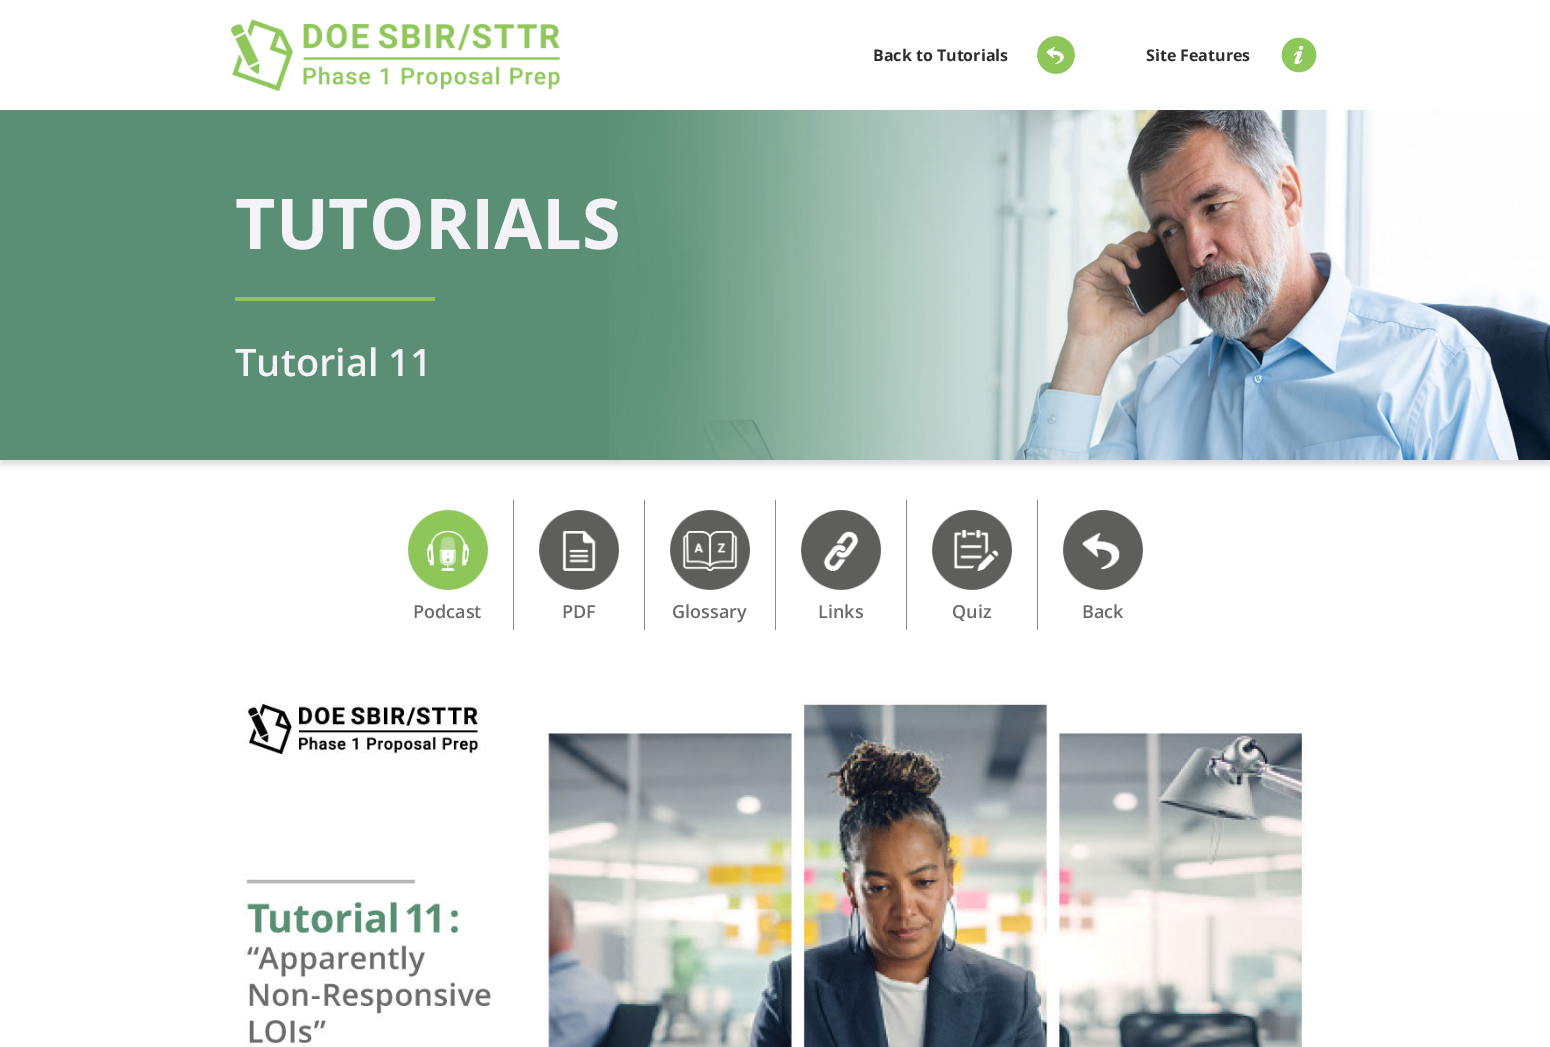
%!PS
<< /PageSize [1550 1047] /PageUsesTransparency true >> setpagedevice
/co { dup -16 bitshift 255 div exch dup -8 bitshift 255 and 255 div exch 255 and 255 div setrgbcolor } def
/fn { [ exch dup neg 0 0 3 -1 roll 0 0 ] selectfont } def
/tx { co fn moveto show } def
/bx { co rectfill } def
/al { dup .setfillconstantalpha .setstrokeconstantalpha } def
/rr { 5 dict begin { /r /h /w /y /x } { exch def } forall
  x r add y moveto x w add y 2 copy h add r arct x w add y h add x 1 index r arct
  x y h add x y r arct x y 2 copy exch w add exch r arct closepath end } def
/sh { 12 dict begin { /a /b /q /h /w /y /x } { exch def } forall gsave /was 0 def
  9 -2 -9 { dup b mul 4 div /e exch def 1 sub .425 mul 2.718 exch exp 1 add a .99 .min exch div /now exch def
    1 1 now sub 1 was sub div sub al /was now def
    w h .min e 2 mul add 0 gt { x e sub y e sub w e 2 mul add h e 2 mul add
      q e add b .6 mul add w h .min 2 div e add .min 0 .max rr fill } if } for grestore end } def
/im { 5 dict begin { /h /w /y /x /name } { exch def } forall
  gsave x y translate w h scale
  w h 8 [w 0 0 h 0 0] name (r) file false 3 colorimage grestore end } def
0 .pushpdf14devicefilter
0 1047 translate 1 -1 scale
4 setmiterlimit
0 0 1550 1047 16#FFFFFF bx
(media/1.raw) 230 19 330 73 im
(media/2.raw) 1037 36 38 38 im
(media/3.raw) 1281 37 36 36 im
16#DEDEE3 co
0 115 1550 350 0 2.5 1 sh
0 110 609 350 16#5A8F75 bx
(media/4.raw) 609 110 941 350 im
235 297 200 4 16#90C458 bx
(media/5.raw) 408 510 80 80 im
513 500 1 130 16#888888 bx
(media/6.raw) 539 510 80 80 im
644 500 1 130 16#888888 bx
(media/7.raw) 670 510 80 80 im
775 500 1 130 16#888888 bx
(media/8.raw) 801 510 80 80 im
906 500 1 130 16#888888 bx
(media/9.raw) 932 510 80 80 im
1037 500 1 130 16#888888 bx
(media/10.raw) 1063 510 80 80 im
(media/11.raw) 243 699 1064 348 im
(Back to Tutorials) 873 61 /OpenSans-Bold 16 16#2E2E2E tx
(Site Features) 1146 61 /OpenSans-Bold 16 16#2E2E2E tx
(TUTORIALS) 235 249 /OpenSans-Bold 70 16#F2F2F7 tx
(Tutorial 11) 235 376 /OpenSans-SemiBold 38 16#F2F2F7 tx
(Podcast) 413 618 /OpenSans-SemiBold 18 16#6B6B6B tx
(PDF) 562 618 /OpenSans-SemiBold 18 16#6B6B6B tx
(Glossary) 672 618 /OpenSans-SemiBold 18 16#6B6B6B tx
(Links) 818 618 /OpenSans-SemiBold 18 16#6B6B6B tx
(Quiz) 952 618 /OpenSans-SemiBold 18 16#6B6B6B tx
(Back) 1082 618 /OpenSans-SemiBold 18 16#6B6B6B tx
.poppdf14devicefilter showpage
